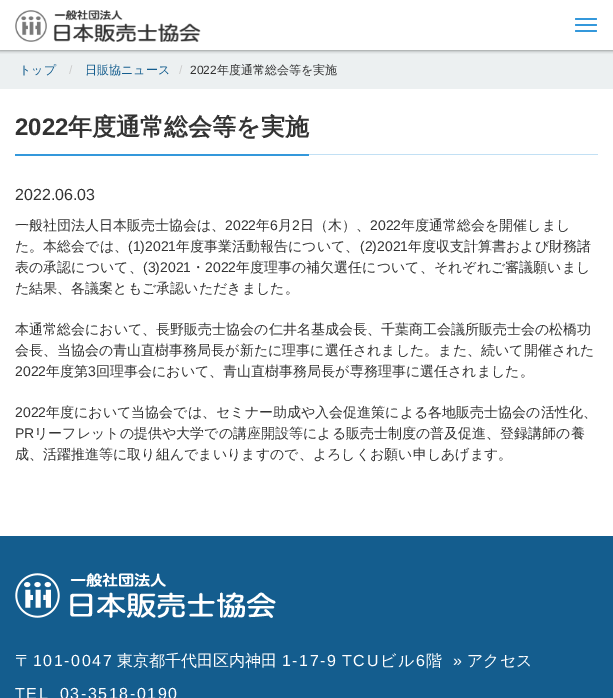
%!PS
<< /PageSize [613 698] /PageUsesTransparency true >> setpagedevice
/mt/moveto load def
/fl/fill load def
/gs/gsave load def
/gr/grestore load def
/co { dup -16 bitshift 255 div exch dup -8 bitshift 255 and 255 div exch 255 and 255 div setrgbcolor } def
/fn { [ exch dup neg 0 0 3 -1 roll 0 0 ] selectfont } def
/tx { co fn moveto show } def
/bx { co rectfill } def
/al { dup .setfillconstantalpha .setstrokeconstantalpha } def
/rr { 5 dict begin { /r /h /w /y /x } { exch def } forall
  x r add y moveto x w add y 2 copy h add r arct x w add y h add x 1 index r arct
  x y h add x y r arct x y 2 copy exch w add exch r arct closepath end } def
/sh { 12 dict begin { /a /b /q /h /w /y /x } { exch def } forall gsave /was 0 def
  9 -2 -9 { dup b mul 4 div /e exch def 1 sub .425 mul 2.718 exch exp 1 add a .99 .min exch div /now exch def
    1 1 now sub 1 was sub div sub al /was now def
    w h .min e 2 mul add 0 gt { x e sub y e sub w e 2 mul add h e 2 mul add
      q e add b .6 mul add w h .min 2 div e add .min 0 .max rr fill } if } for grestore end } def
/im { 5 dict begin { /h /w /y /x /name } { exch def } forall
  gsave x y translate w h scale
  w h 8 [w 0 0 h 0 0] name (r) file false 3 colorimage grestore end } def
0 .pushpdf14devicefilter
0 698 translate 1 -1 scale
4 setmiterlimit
0 0 613 698 16#FFFFFF bx
0 50 613 39 16#ECF0F1 bx
gs
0 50 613 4 rectclip
16#323232 co
0 0 613 50 0 2 .75 sh
gr
(media/1.raw) 15 10 186 32 im
16#3498DB co
575 18 22 2 1 rr fl
575 24 22 2 1 rr fl
575 30 22 2 1 rr fl
309 154 289 1 16#C2E0F4 bx
15 154 294 2 16#3498DB bx
0 536 613 162 16#145D8E bx
(media/2.raw) 15 573 261 45 im
(トップ) 19 74 /WenQuanYiZenHei-Medium 12 16#145D8E tx
(/) 69 74 /LiberationSans-Regular 12 16#CCCCCC tx
(日販協ニュース) 85 74 /WenQuanYiZenHei-Medium 12 16#145D8E tx
(/) 179 74 /LiberationSans-Regular 12 16#CCCCCC tx
(2022) 190 74 /LiberationSans-Regular 12 16#333333 tx
(年度通常総会等を実施) 217 74 /WenQuanYiZenHei-Medium 12 16#333333 tx
(2022) 15 135 /LiberationSans-Bold 24 16#333333 tx
(年度通常総会等を実施) 68 135 /WenQuanYiZenHei-Bold 24 16#333333 tx
(2022.06.03) 15 200 /LiberationSans-Regular 16 16#333333 tx
(一般社団法人日本販売士協会は、) 15 230 /WenQuanYiZenHei-Medium 14 16#333333 tx
(2022) 225 230 /LiberationSans-Regular 14 16#333333 tx
(年) 256 230 /WenQuanYiZenHei-Medium 14 16#333333 tx
(6) 270 230 /LiberationSans-Regular 14 16#333333 tx
(月) 278 230 /WenQuanYiZenHei-Medium 14 16#333333 tx
(2) 292 230 /LiberationSans-Regular 14 16#333333 tx
(日（木）、) 300 230 /WenQuanYiZenHei-Medium 14 16#333333 tx
(2022) 370 230 /LiberationSans-Regular 14 16#333333 tx
(年度通常総会を開催しまし) 401 230 /WenQuanYiZenHei-Medium 14 16#333333 tx
(た。本総会では、) 15 251 /WenQuanYiZenHei-Medium 14 16#333333 tx
(\(1\)2021) 128 251 /LiberationSans-Regular 14 16#333333 tx
(年度事業活動報告について、) 176 251 /WenQuanYiZenHei-Medium 14 16#333333 tx
(\(2\)2021) 360 251 /LiberationSans-Regular 14 16#333333 tx
(年度収支計算書および財務諸) 408 251 /WenQuanYiZenHei-Medium 14 16#333333 tx
(表の承認について、) 15 272 /WenQuanYiZenHei-Medium 14 16#333333 tx
(\(3\)2021) 143 272 /LiberationSans-Regular 14 16#333333 tx
(・) 191 272 /WenQuanYiZenHei-Medium 14 16#333333 tx
(2022) 205 272 /LiberationSans-Regular 14 16#333333 tx
(年度理事の補欠選任について、それぞれご審議願いまし) 236 272 /WenQuanYiZenHei-Medium 14 16#333333 tx
(た結果、各議案ともご承認いただきました。) 15 293 /WenQuanYiZenHei-Medium 14 16#333333 tx
(本通常総会において、長野販売士協会の仁井名基成会長、千葉商工会議所販売士会の松橋功) 15 334 /WenQuanYiZenHei-Medium 14 16#333333 tx
(会長、当協会の青山直樹事務局長が新たに理事に選任されました。また、続いて開催された) 15 355 /WenQuanYiZenHei-Medium 14 16#333333 tx
(2022) 15 376 /LiberationSans-Regular 14 16#333333 tx
(年度第) 46 376 /WenQuanYiZenHei-Medium 14 16#333333 tx
(3) 88 376 /LiberationSans-Regular 14 16#333333 tx
(回理事会において、青山直樹事務局長が専務理事に選任されました。) 96 376 /WenQuanYiZenHei-Medium 14 16#333333 tx
(2022) 15 417 /LiberationSans-Regular 14 16#333333 tx
(年度において当協会では、セミナー助成や入会促進策による各地販売士協会の活性化、) 46 417 /WenQuanYiZenHei-Medium 14 16#333333 tx
(PR) 15 438 /LiberationSans-Regular 14 16#333333 tx
(リーフレットの提供や大学での講座開設等による販売士制度の普及促進、登録講師の養) 34 438 /WenQuanYiZenHei-Medium 14 16#333333 tx
(成、活躍推進等に取り組んでまいりますので、よろしくお願い申しあげます。) 15 459 /WenQuanYiZenHei-Medium 14 16#333333 tx
/WenQuanYiZenHei-Medium 16 fn
16#FFFFFF co
15 666 mt 1.6 0 (〒) ashow
/LiberationSans-Regular 16 fn
33 666 mt 1.6 0 (101-0047) ashow
(東京都千代田区内神田) 117 666 /WenQuanYiZenHei-Medium 16 16#FFFFFF tx
/LiberationSans-Regular 16 fn
282 666 mt 1.6 0 (1-17-9) ashow
342 666 mt 1.6 0 (TCU) ashow
/WenQuanYiZenHei-Medium 16 fn
380 666 mt 1.6 0 (ビル) ashow
/LiberationSans-Regular 16 fn
416 666 mt 1.6 0 (6) ashow
/WenQuanYiZenHei-Medium 16 fn
426 666 mt 1.6 0 (階) ashow
(») 453 666 /LiberationSans-Regular 16 16#FFFFFF tx
(アクセス) 467 666 /WenQuanYiZenHei-Medium 16 16#FFFFFF tx
/LiberationSans-Regular 16 fn
15 699 mt 1.6 0 (TEL) ashow
60 699 mt 1.6 0 (03-3518-0190) ashow
.poppdf14devicefilter showpage
